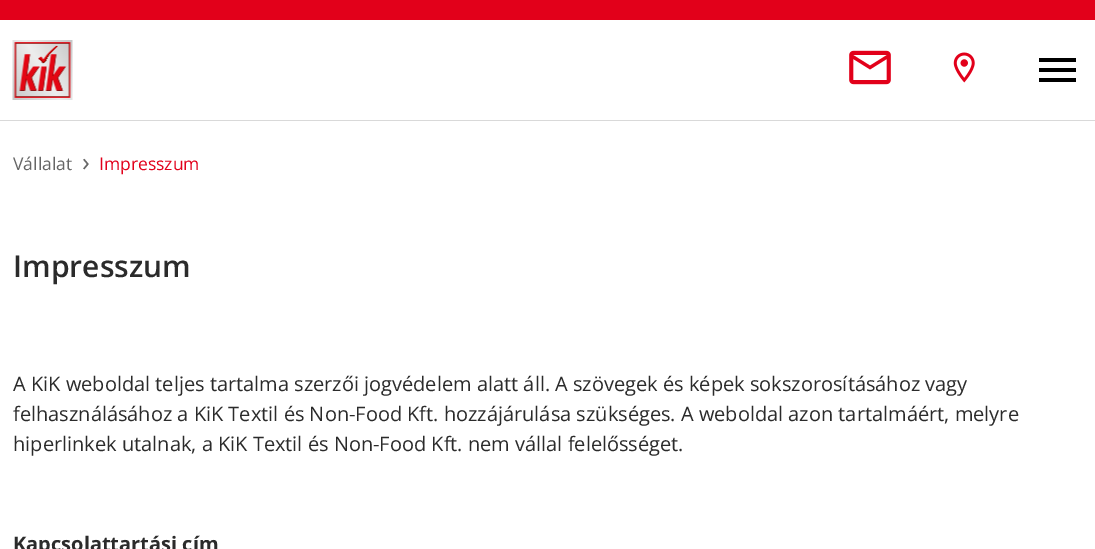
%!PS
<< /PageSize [1095 549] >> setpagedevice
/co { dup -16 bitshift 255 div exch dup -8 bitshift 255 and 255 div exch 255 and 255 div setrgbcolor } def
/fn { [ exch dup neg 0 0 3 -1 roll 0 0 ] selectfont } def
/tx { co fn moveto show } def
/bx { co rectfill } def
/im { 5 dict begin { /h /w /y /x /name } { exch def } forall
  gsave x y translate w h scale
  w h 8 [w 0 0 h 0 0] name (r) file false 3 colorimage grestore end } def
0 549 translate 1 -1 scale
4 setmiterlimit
0 0 1095 549 16#FFFFFF bx
0 0 1095 20 16#E2001A bx
0 120 1095 1 16#D9D9D9 bx
(media/1.raw) 12 40 61 60 im
(media/2.raw) 849 50 42 35 im
(media/3.raw) 953 52 22 31 im
1039 68 37 4 16#000000 bx
1039 58 37 4 16#000000 bx
1039 78 37 4 16#000000 bx
(Vállalat) 13 170 /OpenSans-Regular 17.5 16#666666 tx
(›) 82 171 /OpenSans-Regular 26 16#666666 tx
(Impresszum) 99 170 /OpenSans-Regular 17.5 16#E2001A tx
(Impresszum) 13 277 /OpenSans-SemiBold 30 16#2B2B2B tx
(A KiK weboldal teljes tartalma szerzői jogvédelem alatt áll. A szövegek és képek sokszorosításához vagy) 13 391 /OpenSans-Regular 20 16#2B2B2B tx
(felhasználásához a KiK Textil és Non-Food Kft. hozzájárulása szükséges. A weboldal azon tartalmáért, melyre) 13 421 /OpenSans-Regular 20 16#2B2B2B tx
(hiperlinkek utalnak, a KiK Textil és Non-Food Kft. nem vállal felelősséget.) 13 451 /OpenSans-Regular 20 16#2B2B2B tx
(Kapcsolattartási cím) 13 551 /OpenSans-Bold 20 16#2B2B2B tx
showpage
